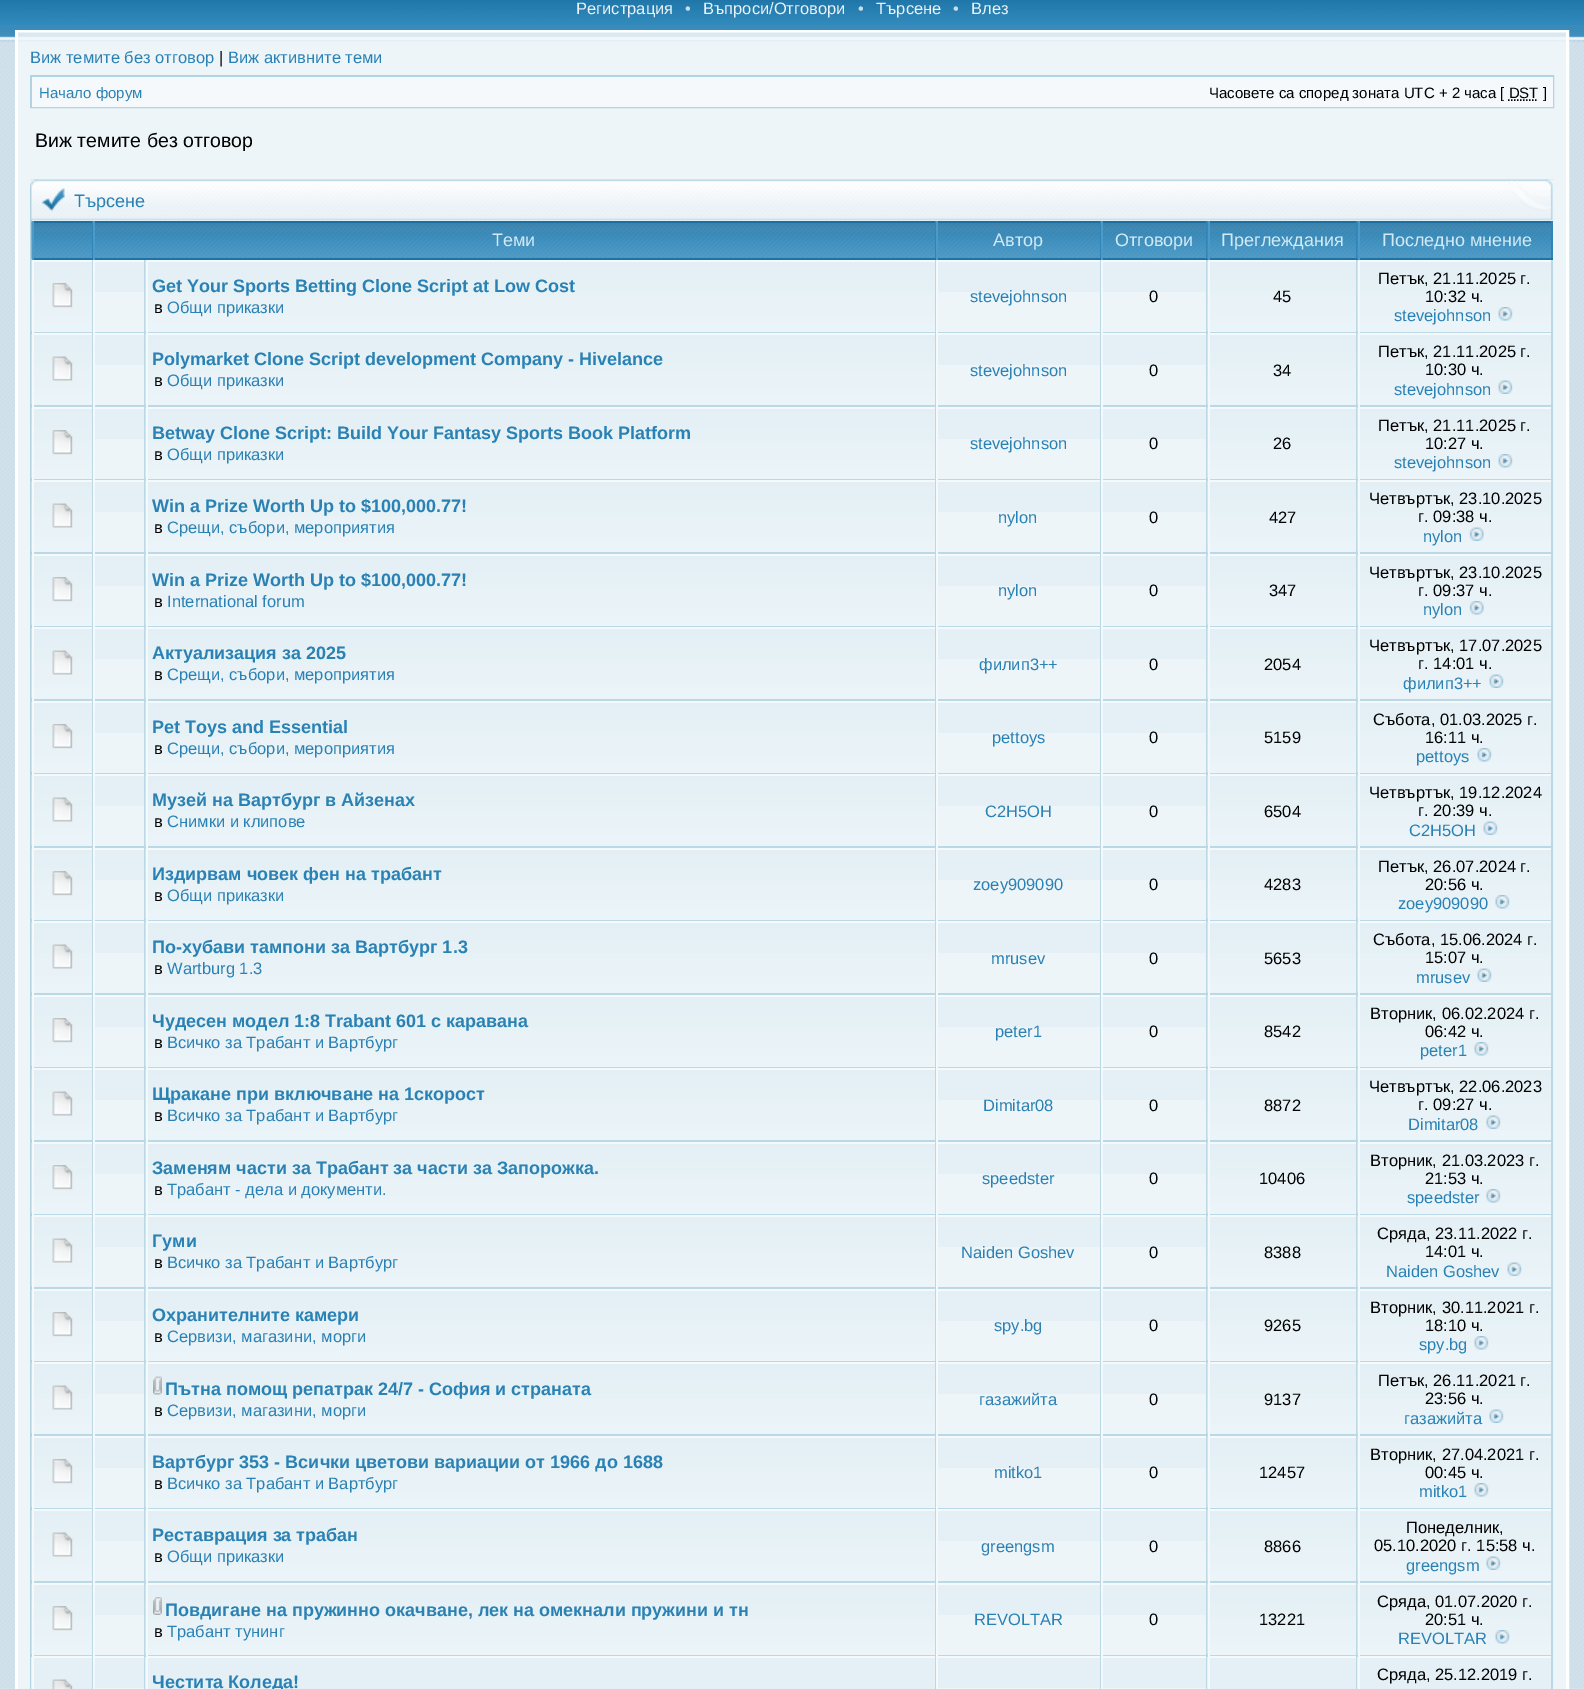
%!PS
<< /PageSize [1584 1689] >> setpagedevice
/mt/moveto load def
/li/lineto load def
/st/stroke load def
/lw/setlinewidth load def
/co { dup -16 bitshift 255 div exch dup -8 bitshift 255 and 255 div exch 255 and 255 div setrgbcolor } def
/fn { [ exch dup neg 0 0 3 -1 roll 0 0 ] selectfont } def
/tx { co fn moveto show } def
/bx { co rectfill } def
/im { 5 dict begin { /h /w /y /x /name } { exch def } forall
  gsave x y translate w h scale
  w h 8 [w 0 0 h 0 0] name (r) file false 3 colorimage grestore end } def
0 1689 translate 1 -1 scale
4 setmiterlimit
0 0 1584 1689 16#D2E3ED bx
(media/1.raw) 0 41 1584 1647 im
0 25 1584 5 16#388BBB bx
(media/2.raw) 0 0 1584 25 im
(media/3.raw) 0 30 1584 12 im
16#FFFFFF co
3 lw
16.5 31.5 1551 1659 rectstroke
18 41 1548 1648 16#EDF5F9 bx
(media/4.raw) 18 32 1548 10 im
16#B2D3E4 co
2 lw
31 76 1522 31 rectstroke
34 79 1519 28 16#F5F9FB bx
32 77 1521 2 16#F4F9FB bx
32 77 2 30 16#F4F9FB bx
16#000000 co
1.5 lw
[1.5 1.5] 0 setdash
1508 100 mt 1538 100 li st
(media/5.raw) 32 220 1521 1 im
30 220 2 1469 16#B2D3E4 bx
(media/6.raw) 30 179 1524 41 im
(media/7.raw) 30 179 35 41 im
(media/8.raw) 1509 179 45 41 im
(media/9.raw) 31 221 61 38 im
32 221 1176 2 16#1B70A1 bx
92 221 1 39 16#3184B3 bx
32 258 61 2 16#1D73A5 bx
32 221 2 39 16#4C9AC7 bx
(media/10.raw) 95 223 840 35 im
935 221 1 39 16#3184B3 bx
93 258 843 2 16#1D73A5 bx
93 221 2 39 16#4C9AC7 bx
(media/11.raw) 938 223 162 35 im
1100 221 1 39 16#3184B3 bx
936 258 165 2 16#1D73A5 bx
936 221 2 39 16#4C9AC7 bx
(media/12.raw) 1103 223 103 35 im
1206 221 2 39 16#3184B3 bx
1101 258 107 2 16#1D73A5 bx
1101 221 2 39 16#4C9AC7 bx
(media/13.raw) 1207 221 149 38 im
1208 221 150 2 16#1B70A1 bx
1356 221 2 39 16#3184B3 bx
1208 258 150 2 16#1D73A5 bx
1208 221 2 39 16#4C9AC7 bx
(media/14.raw) 1357 221 194 38 im
1358 221 195 2 16#1B70A1 bx
1551 221 2 39 16#3184B3 bx
1358 258 195 2 16#1D73A5 bx
1358 221 2 39 16#4C9AC7 bx
(media/15.raw) 31 260 61 71 im
32 260 114 2 16#F4F9FB bx
92 260 1 73 16#BBD8E7 bx
32 332 61 1 16#BBD8E7 bx
32 260 2 73 16#F4F9FB bx
(media/16.raw) 52 283 21 25 im
95 262 49 30 16#E5F0F6 bx
144 260 2 73 16#BBD8E7 bx
93 332 53 1 16#BBD8E7 bx
93 260 2 73 16#F4F9FB bx
(media/17.raw) 145 260 790 71 im
146 260 1062 2 16#F4F9FB bx
935 260 1 73 16#BBD8E7 bx
146 332 790 1 16#BBD8E7 bx
146 260 2 73 16#F4F9FB bx
938 262 162 30 16#E5F0F6 bx
1100 260 1 73 16#BBD8E7 bx
936 332 165 1 16#BBD8E7 bx
936 260 2 73 16#F4F9FB bx
1103 262 103 30 16#E5F0F6 bx
1206 260 2 73 16#BBD8E7 bx
1101 332 107 1 16#BBD8E7 bx
1101 260 2 73 16#F4F9FB bx
(media/18.raw) 1207 260 149 71 im
1208 260 150 2 16#F4F9FB bx
1356 260 2 73 16#BBD8E7 bx
1208 332 150 1 16#BBD8E7 bx
1208 260 2 73 16#F4F9FB bx
(media/19.raw) 1357 260 194 71 im
1358 260 195 2 16#F4F9FB bx
1551 260 2 73 16#BBD8E7 bx
1358 332 195 1 16#BBD8E7 bx
1358 260 2 73 16#F4F9FB bx
(media/20.raw) 1498 307 15 14 im
(media/21.raw) 31 334 61 71 im
32 333 114 2 16#F4F9FB bx
92 333 1 74 16#BBD8E7 bx
32 405 61 2 16#BBD8E7 bx
32 333 2 74 16#F4F9FB bx
(media/22.raw) 52 356 21 25 im
95 335 49 30 16#E5F0F6 bx
144 333 2 74 16#BBD8E7 bx
93 405 53 2 16#BBD8E7 bx
93 333 2 74 16#F4F9FB bx
(media/23.raw) 145 334 790 71 im
146 333 1062 2 16#F4F9FB bx
935 333 1 74 16#BBD8E7 bx
146 405 790 2 16#BBD8E7 bx
146 333 2 74 16#F4F9FB bx
938 335 162 30 16#E5F0F6 bx
1100 333 1 74 16#BBD8E7 bx
936 405 165 2 16#BBD8E7 bx
936 333 2 74 16#F4F9FB bx
1103 335 103 30 16#E5F0F6 bx
1206 333 2 74 16#BBD8E7 bx
1101 405 107 2 16#BBD8E7 bx
1101 333 2 74 16#F4F9FB bx
(media/24.raw) 1207 334 149 71 im
1208 333 150 2 16#F4F9FB bx
1356 333 2 74 16#BBD8E7 bx
1208 405 150 2 16#BBD8E7 bx
1208 333 2 74 16#F4F9FB bx
(media/25.raw) 1357 334 194 71 im
1358 333 195 2 16#F4F9FB bx
1551 333 2 74 16#BBD8E7 bx
1358 405 195 2 16#BBD8E7 bx
1358 333 2 74 16#F4F9FB bx
(media/26.raw) 1498 380 15 14 im
(media/15.raw) 31 407 61 71 im
32 407 114 2 16#F4F9FB bx
92 407 1 73 16#BBD8E7 bx
32 479 61 1 16#BBD8E7 bx
32 407 2 73 16#F4F9FB bx
(media/16.raw) 52 430 21 25 im
95 409 49 30 16#E5F0F6 bx
144 407 2 73 16#BBD8E7 bx
93 479 53 1 16#BBD8E7 bx
93 407 2 73 16#F4F9FB bx
(media/17.raw) 145 407 790 71 im
146 407 1062 2 16#F4F9FB bx
935 407 1 73 16#BBD8E7 bx
146 479 790 1 16#BBD8E7 bx
146 407 2 73 16#F4F9FB bx
938 409 162 30 16#E5F0F6 bx
1100 407 1 73 16#BBD8E7 bx
936 479 165 1 16#BBD8E7 bx
936 407 2 73 16#F4F9FB bx
1103 409 103 30 16#E5F0F6 bx
1206 407 2 73 16#BBD8E7 bx
1101 479 107 1 16#BBD8E7 bx
1101 407 2 73 16#F4F9FB bx
(media/18.raw) 1207 407 149 71 im
1208 407 150 2 16#F4F9FB bx
1356 407 2 73 16#BBD8E7 bx
1208 479 150 1 16#BBD8E7 bx
1208 407 2 73 16#F4F9FB bx
(media/19.raw) 1357 407 194 71 im
1358 407 195 2 16#F4F9FB bx
1551 407 2 73 16#BBD8E7 bx
1358 479 195 1 16#BBD8E7 bx
1358 407 2 73 16#F4F9FB bx
(media/20.raw) 1498 454 15 14 im
(media/21.raw) 31 481 61 71 im
32 480 114 2 16#F4F9FB bx
92 480 1 74 16#BBD8E7 bx
32 552 61 2 16#BBD8E7 bx
32 480 2 74 16#F4F9FB bx
(media/22.raw) 52 503 21 25 im
95 482 49 30 16#E5F0F6 bx
144 480 2 74 16#BBD8E7 bx
93 552 53 2 16#BBD8E7 bx
93 480 2 74 16#F4F9FB bx
(media/23.raw) 145 481 790 71 im
146 480 1062 2 16#F4F9FB bx
935 480 1 74 16#BBD8E7 bx
146 552 790 2 16#BBD8E7 bx
146 480 2 74 16#F4F9FB bx
938 482 162 30 16#E5F0F6 bx
1100 480 1 74 16#BBD8E7 bx
936 552 165 2 16#BBD8E7 bx
936 480 2 74 16#F4F9FB bx
1103 482 103 30 16#E5F0F6 bx
1206 480 2 74 16#BBD8E7 bx
1101 552 107 2 16#BBD8E7 bx
1101 480 2 74 16#F4F9FB bx
(media/24.raw) 1207 481 149 71 im
1208 480 150 2 16#F4F9FB bx
1356 480 2 74 16#BBD8E7 bx
1208 552 150 2 16#BBD8E7 bx
1208 480 2 74 16#F4F9FB bx
(media/25.raw) 1357 481 194 71 im
1358 480 195 2 16#F4F9FB bx
1551 480 2 74 16#BBD8E7 bx
1358 552 195 2 16#BBD8E7 bx
1358 480 2 74 16#F4F9FB bx
(media/27.raw) 1469 527 15 14 im
(media/15.raw) 31 554 61 71 im
32 554 114 2 16#F4F9FB bx
92 554 1 73 16#BBD8E7 bx
32 626 61 1 16#BBD8E7 bx
32 554 2 73 16#F4F9FB bx
(media/16.raw) 52 577 21 25 im
95 556 49 30 16#E5F0F6 bx
144 554 2 73 16#BBD8E7 bx
93 626 53 1 16#BBD8E7 bx
93 554 2 73 16#F4F9FB bx
(media/17.raw) 145 554 790 71 im
146 554 1062 2 16#F4F9FB bx
935 554 1 73 16#BBD8E7 bx
146 626 790 1 16#BBD8E7 bx
146 554 2 73 16#F4F9FB bx
938 556 162 30 16#E5F0F6 bx
1100 554 1 73 16#BBD8E7 bx
936 626 165 1 16#BBD8E7 bx
936 554 2 73 16#F4F9FB bx
1103 556 103 30 16#E5F0F6 bx
1206 554 2 73 16#BBD8E7 bx
1101 626 107 1 16#BBD8E7 bx
1101 554 2 73 16#F4F9FB bx
(media/18.raw) 1207 554 149 71 im
1208 554 150 2 16#F4F9FB bx
1356 554 2 73 16#BBD8E7 bx
1208 626 150 1 16#BBD8E7 bx
1208 554 2 73 16#F4F9FB bx
(media/19.raw) 1357 554 194 71 im
1358 554 195 2 16#F4F9FB bx
1551 554 2 73 16#BBD8E7 bx
1358 626 195 1 16#BBD8E7 bx
1358 554 2 73 16#F4F9FB bx
(media/28.raw) 1469 601 15 14 im
(media/21.raw) 31 628 61 71 im
32 627 114 2 16#F4F9FB bx
92 627 1 74 16#BBD8E7 bx
32 699 61 2 16#BBD8E7 bx
32 627 2 74 16#F4F9FB bx
(media/22.raw) 52 650 21 25 im
95 629 49 30 16#E5F0F6 bx
144 627 2 74 16#BBD8E7 bx
93 699 53 2 16#BBD8E7 bx
93 627 2 74 16#F4F9FB bx
(media/23.raw) 145 628 790 71 im
146 627 1062 2 16#F4F9FB bx
935 627 1 74 16#BBD8E7 bx
146 699 790 2 16#BBD8E7 bx
146 627 2 74 16#F4F9FB bx
938 629 162 30 16#E5F0F6 bx
1100 627 1 74 16#BBD8E7 bx
936 699 165 2 16#BBD8E7 bx
936 627 2 74 16#F4F9FB bx
1103 629 103 30 16#E5F0F6 bx
1206 627 2 74 16#BBD8E7 bx
1101 699 107 2 16#BBD8E7 bx
1101 627 2 74 16#F4F9FB bx
(media/24.raw) 1207 628 149 71 im
1208 627 150 2 16#F4F9FB bx
1356 627 2 74 16#BBD8E7 bx
1208 699 150 2 16#BBD8E7 bx
1208 627 2 74 16#F4F9FB bx
(media/25.raw) 1357 628 194 71 im
1358 627 195 2 16#F4F9FB bx
1551 627 2 74 16#BBD8E7 bx
1358 699 195 2 16#BBD8E7 bx
1358 627 2 74 16#F4F9FB bx
(media/26.raw) 1489 674 15 14 im
(media/15.raw) 31 701 61 71 im
32 701 114 2 16#F4F9FB bx
92 701 1 73 16#BBD8E7 bx
32 773 61 1 16#BBD8E7 bx
32 701 2 73 16#F4F9FB bx
(media/16.raw) 52 724 21 25 im
95 703 49 30 16#E5F0F6 bx
144 701 2 73 16#BBD8E7 bx
93 773 53 1 16#BBD8E7 bx
93 701 2 73 16#F4F9FB bx
(media/17.raw) 145 701 790 71 im
146 701 1062 2 16#F4F9FB bx
935 701 1 73 16#BBD8E7 bx
146 773 790 1 16#BBD8E7 bx
146 701 2 73 16#F4F9FB bx
938 703 162 30 16#E5F0F6 bx
1100 701 1 73 16#BBD8E7 bx
936 773 165 1 16#BBD8E7 bx
936 701 2 73 16#F4F9FB bx
1103 703 103 30 16#E5F0F6 bx
1206 701 2 73 16#BBD8E7 bx
1101 773 107 1 16#BBD8E7 bx
1101 701 2 73 16#F4F9FB bx
(media/18.raw) 1207 701 149 71 im
1208 701 150 2 16#F4F9FB bx
1356 701 2 73 16#BBD8E7 bx
1208 773 150 1 16#BBD8E7 bx
1208 701 2 73 16#F4F9FB bx
(media/19.raw) 1357 701 194 71 im
1358 701 195 2 16#F4F9FB bx
1551 701 2 73 16#BBD8E7 bx
1358 773 195 1 16#BBD8E7 bx
1358 701 2 73 16#F4F9FB bx
(media/20.raw) 1477 748 15 14 im
(media/21.raw) 31 775 61 71 im
32 774 114 2 16#F4F9FB bx
92 774 1 74 16#BBD8E7 bx
32 846 61 2 16#BBD8E7 bx
32 774 2 74 16#F4F9FB bx
(media/22.raw) 52 797 21 25 im
95 776 49 30 16#E5F0F6 bx
144 774 2 74 16#BBD8E7 bx
93 846 53 2 16#BBD8E7 bx
93 774 2 74 16#F4F9FB bx
(media/23.raw) 145 775 790 71 im
146 774 1062 2 16#F4F9FB bx
935 774 1 74 16#BBD8E7 bx
146 846 790 2 16#BBD8E7 bx
146 774 2 74 16#F4F9FB bx
938 776 162 30 16#E5F0F6 bx
1100 774 1 74 16#BBD8E7 bx
936 846 165 2 16#BBD8E7 bx
936 774 2 74 16#F4F9FB bx
1103 776 103 30 16#E5F0F6 bx
1206 774 2 74 16#BBD8E7 bx
1101 846 107 2 16#BBD8E7 bx
1101 774 2 74 16#F4F9FB bx
(media/24.raw) 1207 775 149 71 im
1208 774 150 2 16#F4F9FB bx
1356 774 2 74 16#BBD8E7 bx
1208 846 150 2 16#BBD8E7 bx
1208 774 2 74 16#F4F9FB bx
(media/25.raw) 1357 775 194 71 im
1358 774 195 2 16#F4F9FB bx
1551 774 2 74 16#BBD8E7 bx
1358 846 195 2 16#BBD8E7 bx
1358 774 2 74 16#F4F9FB bx
(media/26.raw) 1483 821 15 14 im
(media/15.raw) 31 848 61 71 im
32 848 114 2 16#F4F9FB bx
92 848 1 73 16#BBD8E7 bx
32 920 61 1 16#BBD8E7 bx
32 848 2 73 16#F4F9FB bx
(media/16.raw) 52 871 21 25 im
95 850 49 30 16#E5F0F6 bx
144 848 2 73 16#BBD8E7 bx
93 920 53 1 16#BBD8E7 bx
93 848 2 73 16#F4F9FB bx
(media/17.raw) 145 848 790 71 im
146 848 1062 2 16#F4F9FB bx
935 848 1 73 16#BBD8E7 bx
146 920 790 1 16#BBD8E7 bx
146 848 2 73 16#F4F9FB bx
938 850 162 30 16#E5F0F6 bx
1100 848 1 73 16#BBD8E7 bx
936 920 165 1 16#BBD8E7 bx
936 848 2 73 16#F4F9FB bx
1103 850 103 30 16#E5F0F6 bx
1206 848 2 73 16#BBD8E7 bx
1101 920 107 1 16#BBD8E7 bx
1101 848 2 73 16#F4F9FB bx
(media/18.raw) 1207 848 149 71 im
1208 848 150 2 16#F4F9FB bx
1356 848 2 73 16#BBD8E7 bx
1208 920 150 1 16#BBD8E7 bx
1208 848 2 73 16#F4F9FB bx
(media/19.raw) 1357 848 194 71 im
1358 848 195 2 16#F4F9FB bx
1551 848 2 73 16#BBD8E7 bx
1358 920 195 1 16#BBD8E7 bx
1358 848 2 73 16#F4F9FB bx
(media/20.raw) 1495 895 15 14 im
(media/21.raw) 31 922 61 71 im
32 921 114 2 16#F4F9FB bx
92 921 1 74 16#BBD8E7 bx
32 993 61 2 16#BBD8E7 bx
32 921 2 74 16#F4F9FB bx
(media/22.raw) 52 944 21 25 im
95 923 49 30 16#E5F0F6 bx
144 921 2 74 16#BBD8E7 bx
93 993 53 2 16#BBD8E7 bx
93 921 2 74 16#F4F9FB bx
(media/23.raw) 145 922 790 71 im
146 921 1062 2 16#F4F9FB bx
935 921 1 74 16#BBD8E7 bx
146 993 790 2 16#BBD8E7 bx
146 921 2 74 16#F4F9FB bx
938 923 162 30 16#E5F0F6 bx
1100 921 1 74 16#BBD8E7 bx
936 993 165 2 16#BBD8E7 bx
936 921 2 74 16#F4F9FB bx
1103 923 103 30 16#E5F0F6 bx
1206 921 2 74 16#BBD8E7 bx
1101 993 107 2 16#BBD8E7 bx
1101 921 2 74 16#F4F9FB bx
(media/24.raw) 1207 922 149 71 im
1208 921 150 2 16#F4F9FB bx
1356 921 2 74 16#BBD8E7 bx
1208 993 150 2 16#BBD8E7 bx
1208 921 2 74 16#F4F9FB bx
(media/25.raw) 1357 922 194 71 im
1358 921 195 2 16#F4F9FB bx
1551 921 2 74 16#BBD8E7 bx
1358 993 195 2 16#BBD8E7 bx
1358 921 2 74 16#F4F9FB bx
(media/26.raw) 1477 968 15 14 im
(media/15.raw) 31 995 61 71 im
32 995 114 2 16#F4F9FB bx
92 995 1 73 16#BBD8E7 bx
32 1067 61 1 16#BBD8E7 bx
32 995 2 73 16#F4F9FB bx
(media/16.raw) 52 1018 21 25 im
95 997 49 30 16#E5F0F6 bx
144 995 2 73 16#BBD8E7 bx
93 1067 53 1 16#BBD8E7 bx
93 995 2 73 16#F4F9FB bx
(media/17.raw) 145 995 790 71 im
146 995 1062 2 16#F4F9FB bx
935 995 1 73 16#BBD8E7 bx
146 1067 790 1 16#BBD8E7 bx
146 995 2 73 16#F4F9FB bx
938 997 162 30 16#E5F0F6 bx
1100 995 1 73 16#BBD8E7 bx
936 1067 165 1 16#BBD8E7 bx
936 995 2 73 16#F4F9FB bx
1103 997 103 30 16#E5F0F6 bx
1206 995 2 73 16#BBD8E7 bx
1101 1067 107 1 16#BBD8E7 bx
1101 995 2 73 16#F4F9FB bx
(media/18.raw) 1207 995 149 71 im
1208 995 150 2 16#F4F9FB bx
1356 995 2 73 16#BBD8E7 bx
1208 1067 150 1 16#BBD8E7 bx
1208 995 2 73 16#F4F9FB bx
(media/19.raw) 1357 995 194 71 im
1358 995 195 2 16#F4F9FB bx
1551 995 2 73 16#BBD8E7 bx
1358 1067 195 1 16#BBD8E7 bx
1358 995 2 73 16#F4F9FB bx
(media/20.raw) 1474 1042 15 14 im
(media/21.raw) 31 1069 61 71 im
32 1068 114 2 16#F4F9FB bx
92 1068 1 74 16#BBD8E7 bx
32 1140 61 2 16#BBD8E7 bx
32 1068 2 74 16#F4F9FB bx
(media/22.raw) 52 1091 21 25 im
95 1070 49 30 16#E5F0F6 bx
144 1068 2 74 16#BBD8E7 bx
93 1140 53 2 16#BBD8E7 bx
93 1068 2 74 16#F4F9FB bx
(media/23.raw) 145 1069 790 71 im
146 1068 1062 2 16#F4F9FB bx
935 1068 1 74 16#BBD8E7 bx
146 1140 790 2 16#BBD8E7 bx
146 1068 2 74 16#F4F9FB bx
938 1070 162 30 16#E5F0F6 bx
1100 1068 1 74 16#BBD8E7 bx
936 1140 165 2 16#BBD8E7 bx
936 1068 2 74 16#F4F9FB bx
1103 1070 103 30 16#E5F0F6 bx
1206 1068 2 74 16#BBD8E7 bx
1101 1140 107 2 16#BBD8E7 bx
1101 1068 2 74 16#F4F9FB bx
(media/24.raw) 1207 1069 149 71 im
1208 1068 150 2 16#F4F9FB bx
1356 1068 2 74 16#BBD8E7 bx
1208 1140 150 2 16#BBD8E7 bx
1208 1068 2 74 16#F4F9FB bx
(media/25.raw) 1357 1069 194 71 im
1358 1068 195 2 16#F4F9FB bx
1551 1068 2 74 16#BBD8E7 bx
1358 1140 195 2 16#BBD8E7 bx
1358 1068 2 74 16#F4F9FB bx
(media/26.raw) 1486 1115 15 14 im
(media/15.raw) 31 1142 61 71 im
32 1142 114 2 16#F4F9FB bx
92 1142 1 73 16#BBD8E7 bx
32 1214 61 1 16#BBD8E7 bx
32 1142 2 73 16#F4F9FB bx
(media/16.raw) 52 1165 21 25 im
95 1144 49 30 16#E5F0F6 bx
144 1142 2 73 16#BBD8E7 bx
93 1214 53 1 16#BBD8E7 bx
93 1142 2 73 16#F4F9FB bx
(media/17.raw) 145 1142 790 71 im
146 1142 1062 2 16#F4F9FB bx
935 1142 1 73 16#BBD8E7 bx
146 1214 790 1 16#BBD8E7 bx
146 1142 2 73 16#F4F9FB bx
938 1144 162 30 16#E5F0F6 bx
1100 1142 1 73 16#BBD8E7 bx
936 1214 165 1 16#BBD8E7 bx
936 1142 2 73 16#F4F9FB bx
1103 1144 103 30 16#E5F0F6 bx
1206 1142 2 73 16#BBD8E7 bx
1101 1214 107 1 16#BBD8E7 bx
1101 1142 2 73 16#F4F9FB bx
(media/18.raw) 1207 1142 149 71 im
1208 1142 150 2 16#F4F9FB bx
1356 1142 2 73 16#BBD8E7 bx
1208 1214 150 1 16#BBD8E7 bx
1208 1142 2 73 16#F4F9FB bx
(media/19.raw) 1357 1142 194 71 im
1358 1142 195 2 16#F4F9FB bx
1551 1142 2 73 16#BBD8E7 bx
1358 1214 195 1 16#BBD8E7 bx
1358 1142 2 73 16#F4F9FB bx
(media/20.raw) 1486 1189 15 14 im
(media/21.raw) 31 1216 61 71 im
32 1215 114 2 16#F4F9FB bx
92 1215 1 74 16#BBD8E7 bx
32 1287 61 2 16#BBD8E7 bx
32 1215 2 74 16#F4F9FB bx
(media/22.raw) 52 1238 21 25 im
95 1217 49 30 16#E5F0F6 bx
144 1215 2 74 16#BBD8E7 bx
93 1287 53 2 16#BBD8E7 bx
93 1215 2 74 16#F4F9FB bx
(media/23.raw) 145 1216 790 71 im
146 1215 1062 2 16#F4F9FB bx
935 1215 1 74 16#BBD8E7 bx
146 1287 790 2 16#BBD8E7 bx
146 1215 2 74 16#F4F9FB bx
938 1217 162 30 16#E5F0F6 bx
1100 1215 1 74 16#BBD8E7 bx
936 1287 165 2 16#BBD8E7 bx
936 1215 2 74 16#F4F9FB bx
1103 1217 103 30 16#E5F0F6 bx
1206 1215 2 74 16#BBD8E7 bx
1101 1287 107 2 16#BBD8E7 bx
1101 1215 2 74 16#F4F9FB bx
(media/24.raw) 1207 1216 149 71 im
1208 1215 150 2 16#F4F9FB bx
1356 1215 2 74 16#BBD8E7 bx
1208 1287 150 2 16#BBD8E7 bx
1208 1215 2 74 16#F4F9FB bx
(media/25.raw) 1357 1216 194 71 im
1358 1215 195 2 16#F4F9FB bx
1551 1215 2 74 16#BBD8E7 bx
1358 1287 195 2 16#BBD8E7 bx
1358 1215 2 74 16#F4F9FB bx
(media/26.raw) 1507 1262 15 14 im
(media/15.raw) 31 1289 61 71 im
32 1289 114 2 16#F4F9FB bx
92 1289 1 73 16#BBD8E7 bx
32 1361 61 1 16#BBD8E7 bx
32 1289 2 73 16#F4F9FB bx
(media/16.raw) 52 1312 21 25 im
95 1291 49 30 16#E5F0F6 bx
144 1289 2 73 16#BBD8E7 bx
93 1361 53 1 16#BBD8E7 bx
93 1289 2 73 16#F4F9FB bx
(media/17.raw) 145 1289 790 71 im
146 1289 1062 2 16#F4F9FB bx
935 1289 1 73 16#BBD8E7 bx
146 1361 790 1 16#BBD8E7 bx
146 1289 2 73 16#F4F9FB bx
938 1291 162 30 16#E5F0F6 bx
1100 1289 1 73 16#BBD8E7 bx
936 1361 165 1 16#BBD8E7 bx
936 1289 2 73 16#F4F9FB bx
1103 1291 103 30 16#E5F0F6 bx
1206 1289 2 73 16#BBD8E7 bx
1101 1361 107 1 16#BBD8E7 bx
1101 1289 2 73 16#F4F9FB bx
(media/18.raw) 1207 1289 149 71 im
1208 1289 150 2 16#F4F9FB bx
1356 1289 2 73 16#BBD8E7 bx
1208 1361 150 1 16#BBD8E7 bx
1208 1289 2 73 16#F4F9FB bx
(media/19.raw) 1357 1289 194 71 im
1358 1289 195 2 16#F4F9FB bx
1551 1289 2 73 16#BBD8E7 bx
1358 1361 195 1 16#BBD8E7 bx
1358 1289 2 73 16#F4F9FB bx
(media/20.raw) 1474 1336 15 14 im
(media/21.raw) 31 1363 61 71 im
32 1362 114 2 16#F4F9FB bx
92 1362 1 74 16#BBD8E7 bx
32 1434 61 2 16#BBD8E7 bx
32 1362 2 74 16#F4F9FB bx
(media/22.raw) 52 1385 21 25 im
95 1364 49 30 16#E5F0F6 bx
144 1362 2 74 16#BBD8E7 bx
93 1434 53 2 16#BBD8E7 bx
93 1362 2 74 16#F4F9FB bx
(media/23.raw) 145 1363 790 71 im
146 1362 1062 2 16#F4F9FB bx
935 1362 1 74 16#BBD8E7 bx
146 1434 790 2 16#BBD8E7 bx
146 1362 2 74 16#F4F9FB bx
(media/29.raw) 153 1376 9 19 im
938 1364 162 30 16#E5F0F6 bx
1100 1362 1 74 16#BBD8E7 bx
936 1434 165 2 16#BBD8E7 bx
936 1362 2 74 16#F4F9FB bx
1103 1364 103 30 16#E5F0F6 bx
1206 1362 2 74 16#BBD8E7 bx
1101 1434 107 2 16#BBD8E7 bx
1101 1362 2 74 16#F4F9FB bx
(media/24.raw) 1207 1363 149 71 im
1208 1362 150 2 16#F4F9FB bx
1356 1362 2 74 16#BBD8E7 bx
1208 1434 150 2 16#BBD8E7 bx
1208 1362 2 74 16#F4F9FB bx
(media/25.raw) 1357 1363 194 71 im
1358 1362 195 2 16#F4F9FB bx
1551 1362 2 74 16#BBD8E7 bx
1358 1434 195 2 16#BBD8E7 bx
1358 1362 2 74 16#F4F9FB bx
(media/26.raw) 1489 1409 15 14 im
(media/15.raw) 31 1436 61 71 im
32 1436 114 2 16#F4F9FB bx
92 1436 1 73 16#BBD8E7 bx
32 1508 61 1 16#BBD8E7 bx
32 1436 2 73 16#F4F9FB bx
(media/16.raw) 52 1459 21 25 im
95 1438 49 30 16#E5F0F6 bx
144 1436 2 73 16#BBD8E7 bx
93 1508 53 1 16#BBD8E7 bx
93 1436 2 73 16#F4F9FB bx
(media/17.raw) 145 1436 790 71 im
146 1436 1062 2 16#F4F9FB bx
935 1436 1 73 16#BBD8E7 bx
146 1508 790 1 16#BBD8E7 bx
146 1436 2 73 16#F4F9FB bx
938 1438 162 30 16#E5F0F6 bx
1100 1436 1 73 16#BBD8E7 bx
936 1508 165 1 16#BBD8E7 bx
936 1436 2 73 16#F4F9FB bx
1103 1438 103 30 16#E5F0F6 bx
1206 1436 2 73 16#BBD8E7 bx
1101 1508 107 1 16#BBD8E7 bx
1101 1436 2 73 16#F4F9FB bx
(media/18.raw) 1207 1436 149 71 im
1208 1436 150 2 16#F4F9FB bx
1356 1436 2 73 16#BBD8E7 bx
1208 1508 150 1 16#BBD8E7 bx
1208 1436 2 73 16#F4F9FB bx
(media/19.raw) 1357 1436 194 71 im
1358 1436 195 2 16#F4F9FB bx
1551 1436 2 73 16#BBD8E7 bx
1358 1508 195 1 16#BBD8E7 bx
1358 1436 2 73 16#F4F9FB bx
(media/20.raw) 1474 1483 15 14 im
(media/21.raw) 31 1510 61 71 im
32 1509 114 2 16#F4F9FB bx
92 1509 1 74 16#BBD8E7 bx
32 1581 61 2 16#BBD8E7 bx
32 1509 2 74 16#F4F9FB bx
(media/22.raw) 52 1532 21 25 im
95 1511 49 30 16#E5F0F6 bx
144 1509 2 74 16#BBD8E7 bx
93 1581 53 2 16#BBD8E7 bx
93 1509 2 74 16#F4F9FB bx
(media/23.raw) 145 1510 790 71 im
146 1509 1062 2 16#F4F9FB bx
935 1509 1 74 16#BBD8E7 bx
146 1581 790 2 16#BBD8E7 bx
146 1509 2 74 16#F4F9FB bx
938 1511 162 30 16#E5F0F6 bx
1100 1509 1 74 16#BBD8E7 bx
936 1581 165 2 16#BBD8E7 bx
936 1509 2 74 16#F4F9FB bx
1103 1511 103 30 16#E5F0F6 bx
1206 1509 2 74 16#BBD8E7 bx
1101 1581 107 2 16#BBD8E7 bx
1101 1509 2 74 16#F4F9FB bx
(media/24.raw) 1207 1510 149 71 im
1208 1509 150 2 16#F4F9FB bx
1356 1509 2 74 16#BBD8E7 bx
1208 1581 150 2 16#BBD8E7 bx
1208 1509 2 74 16#F4F9FB bx
(media/25.raw) 1357 1510 194 71 im
1358 1509 195 2 16#F4F9FB bx
1551 1509 2 74 16#BBD8E7 bx
1358 1581 195 2 16#BBD8E7 bx
1358 1509 2 74 16#F4F9FB bx
(media/26.raw) 1486 1556 15 14 im
(media/15.raw) 31 1583 61 71 im
32 1583 114 2 16#F4F9FB bx
92 1583 1 73 16#BBD8E7 bx
32 1655 61 1 16#BBD8E7 bx
32 1583 2 73 16#F4F9FB bx
(media/16.raw) 52 1606 21 25 im
95 1585 49 30 16#E5F0F6 bx
144 1583 2 73 16#BBD8E7 bx
93 1655 53 1 16#BBD8E7 bx
93 1583 2 73 16#F4F9FB bx
(media/17.raw) 145 1583 790 71 im
146 1583 1062 2 16#F4F9FB bx
935 1583 1 73 16#BBD8E7 bx
146 1655 790 1 16#BBD8E7 bx
146 1583 2 73 16#F4F9FB bx
(media/30.raw) 153 1597 9 18 im
938 1585 162 30 16#E5F0F6 bx
1100 1583 1 73 16#BBD8E7 bx
936 1655 165 1 16#BBD8E7 bx
936 1583 2 73 16#F4F9FB bx
1103 1585 103 30 16#E5F0F6 bx
1206 1583 2 73 16#BBD8E7 bx
1101 1655 107 1 16#BBD8E7 bx
1101 1583 2 73 16#F4F9FB bx
(media/18.raw) 1207 1583 149 71 im
1208 1583 150 2 16#F4F9FB bx
1356 1583 2 73 16#BBD8E7 bx
1208 1655 150 1 16#BBD8E7 bx
1208 1583 2 73 16#F4F9FB bx
(media/19.raw) 1357 1583 194 71 im
1358 1583 195 2 16#F4F9FB bx
1551 1583 2 73 16#BBD8E7 bx
1358 1655 195 1 16#BBD8E7 bx
1358 1583 2 73 16#F4F9FB bx
(media/20.raw) 1495 1630 15 14 im
31 1657 61 32 16#E5F0F6 bx
32 1656 114 2 16#F4F9FB bx
92 1656 1 33 16#BBD8E7 bx
32 1656 2 33 16#F4F9FB bx
(media/31.raw) 52 1679 21 10 im
95 1658 49 30 16#E5F0F6 bx
144 1656 2 33 16#BBD8E7 bx
93 1656 2 33 16#F4F9FB bx
145 1657 790 32 16#E5F0F6 bx
146 1656 1062 2 16#F4F9FB bx
935 1656 1 33 16#BBD8E7 bx
146 1656 2 33 16#F4F9FB bx
938 1658 162 30 16#E5F0F6 bx
1100 1656 1 33 16#BBD8E7 bx
936 1656 2 33 16#F4F9FB bx
1103 1658 103 30 16#E5F0F6 bx
1206 1656 2 33 16#BBD8E7 bx
1101 1656 2 33 16#F4F9FB bx
1207 1657 149 32 16#E5F0F6 bx
1208 1656 150 2 16#F4F9FB bx
1356 1656 2 33 16#BBD8E7 bx
1208 1656 2 33 16#F4F9FB bx
1357 1657 194 32 16#E5F0F6 bx
1358 1656 195 2 16#F4F9FB bx
1551 1656 2 33 16#BBD8E7 bx
1358 1656 2 33 16#F4F9FB bx
(Регистрация) 576 14 /LiberationSans-Regular 16.5 16#ECF2F5 tx
(•) 685 14 /LiberationSans-Regular 16.5 16#CADEEA tx
(Въпроси/Отговори) 703 14 /LiberationSans-Regular 16.5 16#ECF2F5 tx
(•) 858 14 /LiberationSans-Regular 16.5 16#CADEEA tx
(Търсене) 876 14 /LiberationSans-Regular 16.5 16#ECF2F5 tx
(•) 953 14 /LiberationSans-Regular 16.5 16#CADEEA tx
(Влез) 971 14 /LiberationSans-Regular 16.5 16#ECF2F5 tx
(Виж темите без отговор) 30 63 /LiberationSans-Regular 16.5 16#2981B4 tx
(|) 219 63 /LiberationSans-Regular 16.5 16#000000 tx
(Виж активните теми) 228 63 /LiberationSans-Regular 16.5 16#2981B4 tx
(Начало форум) 39 98 /LiberationSans-Regular 15 16#2981B4 tx
(Часовете са според зоната UTC + 2 часа [ DST ]) 1209 98 /LiberationSans-Regular 15 16#000000 tx
(Виж темите без отговор) 35 147 /LiberationSans-Regular 19.5 16#000000 tx
(Търсене) 74 207 /LiberationSans-Regular 18 16#2981B4 tx
(Теми) 492 246 /LiberationSans-Regular 18 16#D1EAF4 tx
(Автор) 993 246 /LiberationSans-Regular 18 16#D1EAF4 tx
(Отговори) 1115 246 /LiberationSans-Regular 18 16#D1EAF4 tx
(Преглеждания) 1221 246 /LiberationSans-Regular 18 16#D1EAF4 tx
(Последно мнение) 1382 246 /LiberationSans-Regular 18 16#D1EAF4 tx
(Get Your Sports Betting Clone Script at Low Cost) 152 292 /LiberationSans-Bold 18 16#2981B4 tx
(в) 154 313 /LiberationSans-Regular 16.5 16#000000 tx
(Общи приказки) 167 313 /LiberationSans-Regular 16.5 16#2981B4 tx
(stevejohnson) 970 302 /LiberationSans-Regular 16.5 16#2981B4 tx
(0) 1149 302 /LiberationSans-Regular 16.5 16#000000 tx
(45) 1273 302 /LiberationSans-Regular 16.5 16#000000 tx
(Петък, 21.11.2025 г.) 1378 284 /LiberationSans-Regular 16.5 16#000000 tx
(10:32 ч.) 1425 302 /LiberationSans-Regular 16.5 16#000000 tx
(stevejohnson) 1394 321 /LiberationSans-Regular 16.5 16#2981B4 tx
(Polymarket Clone Script development Company - Hivelance) 152 365 /LiberationSans-Bold 18 16#2981B4 tx
(в) 154 386 /LiberationSans-Regular 16.5 16#000000 tx
(Общи приказки) 167 386 /LiberationSans-Regular 16.5 16#2981B4 tx
(stevejohnson) 970 376 /LiberationSans-Regular 16.5 16#2981B4 tx
(0) 1149 376 /LiberationSans-Regular 16.5 16#000000 tx
(34) 1273 376 /LiberationSans-Regular 16.5 16#000000 tx
(Петък, 21.11.2025 г.) 1378 357 /LiberationSans-Regular 16.5 16#000000 tx
(10:30 ч.) 1425 375 /LiberationSans-Regular 16.5 16#000000 tx
(stevejohnson) 1394 395 /LiberationSans-Regular 16.5 16#2981B4 tx
(Betway Clone Script: Build Your Fantasy Sports Book Platform) 152 439 /LiberationSans-Bold 18 16#2981B4 tx
(в) 154 460 /LiberationSans-Regular 16.5 16#000000 tx
(Общи приказки) 167 460 /LiberationSans-Regular 16.5 16#2981B4 tx
(stevejohnson) 970 449 /LiberationSans-Regular 16.5 16#2981B4 tx
(0) 1149 449 /LiberationSans-Regular 16.5 16#000000 tx
(26) 1273 449 /LiberationSans-Regular 16.5 16#000000 tx
(Петък, 21.11.2025 г.) 1378 431 /LiberationSans-Regular 16.5 16#000000 tx
(10:27 ч.) 1425 449 /LiberationSans-Regular 16.5 16#000000 tx
(stevejohnson) 1394 468 /LiberationSans-Regular 16.5 16#2981B4 tx
(Win a Prize Worth Up to $100,000.77!) 152 512 /LiberationSans-Bold 18 16#2981B4 tx
(в) 154 533 /LiberationSans-Regular 16.5 16#000000 tx
(Срещи, събори, мероприятия) 167 533 /LiberationSans-Regular 16.5 16#2981B4 tx
(nylon) 998 523 /LiberationSans-Regular 16.5 16#2981B4 tx
(0) 1149 523 /LiberationSans-Regular 16.5 16#000000 tx
(427) 1269 523 /LiberationSans-Regular 16.5 16#000000 tx
(Четвъртък, 23.10.2025) 1369 504 /LiberationSans-Regular 16.5 16#000000 tx
(г. 09:38 ч.) 1418 522 /LiberationSans-Regular 16.5 16#000000 tx
(nylon) 1423 542 /LiberationSans-Regular 16.5 16#2981B4 tx
(Win a Prize Worth Up to $100,000.77!) 152 586 /LiberationSans-Bold 18 16#2981B4 tx
(в) 154 607 /LiberationSans-Regular 16.5 16#000000 tx
(International forum) 167 607 /LiberationSans-Regular 16.5 16#2981B4 tx
(nylon) 998 596 /LiberationSans-Regular 16.5 16#2981B4 tx
(0) 1149 596 /LiberationSans-Regular 16.5 16#000000 tx
(347) 1269 596 /LiberationSans-Regular 16.5 16#000000 tx
(Четвъртък, 23.10.2025) 1369 578 /LiberationSans-Regular 16.5 16#000000 tx
(г. 09:37 ч.) 1418 596 /LiberationSans-Regular 16.5 16#000000 tx
(nylon) 1423 615 /LiberationSans-Regular 16.5 16#2981B4 tx
(Актуализация за 2025) 152 659 /LiberationSans-Bold 18 16#2981B4 tx
(в) 154 680 /LiberationSans-Regular 16.5 16#000000 tx
(Срещи, събори, мероприятия) 167 680 /LiberationSans-Regular 16.5 16#2981B4 tx
(филип3++) 979 670 /LiberationSans-Regular 16.5 16#2981B4 tx
(0) 1149 670 /LiberationSans-Regular 16.5 16#000000 tx
(2054) 1264 670 /LiberationSans-Regular 16.5 16#000000 tx
(Четвъртък, 17.07.2025) 1369 651 /LiberationSans-Regular 16.5 16#000000 tx
(г. 14:01 ч.) 1418 669 /LiberationSans-Regular 16.5 16#000000 tx
(филип3++) 1403 689 /LiberationSans-Regular 16.5 16#2981B4 tx
(Pet Toys and Essential) 152 733 /LiberationSans-Bold 18 16#2981B4 tx
(в) 154 754 /LiberationSans-Regular 16.5 16#000000 tx
(Срещи, събори, мероприятия) 167 754 /LiberationSans-Regular 16.5 16#2981B4 tx
(pettoys) 992 743 /LiberationSans-Regular 16.5 16#2981B4 tx
(0) 1149 743 /LiberationSans-Regular 16.5 16#000000 tx
(5159) 1264 743 /LiberationSans-Regular 16.5 16#000000 tx
(Събота, 01.03.2025 г.) 1373 725 /LiberationSans-Regular 16.5 16#000000 tx
(16:11 ч.) 1425 743 /LiberationSans-Regular 16.5 16#000000 tx
(pettoys) 1416 762 /LiberationSans-Regular 16.5 16#2981B4 tx
(Музей на Вартбург в Айзенах) 152 806 /LiberationSans-Bold 18 16#2981B4 tx
(в) 154 827 /LiberationSans-Regular 16.5 16#000000 tx
(Снимки и клипове) 167 827 /LiberationSans-Regular 16.5 16#2981B4 tx
(C2H5OH) 985 817 /LiberationSans-Regular 16.5 16#2981B4 tx
(0) 1149 817 /LiberationSans-Regular 16.5 16#000000 tx
(6504) 1264 817 /LiberationSans-Regular 16.5 16#000000 tx
(Четвъртък, 19.12.2024) 1369 798 /LiberationSans-Regular 16.5 16#000000 tx
(г. 20:39 ч.) 1418 816 /LiberationSans-Regular 16.5 16#000000 tx
(C2H5OH) 1409 836 /LiberationSans-Regular 16.5 16#2981B4 tx
(Издирвам човек фен на трабант) 152 880 /LiberationSans-Bold 18 16#2981B4 tx
(в) 154 901 /LiberationSans-Regular 16.5 16#000000 tx
(Общи приказки) 167 901 /LiberationSans-Regular 16.5 16#2981B4 tx
(zoey909090) 973 890 /LiberationSans-Regular 16.5 16#2981B4 tx
(0) 1149 890 /LiberationSans-Regular 16.5 16#000000 tx
(4283) 1264 890 /LiberationSans-Regular 16.5 16#000000 tx
(Петък, 26.07.2024 г.) 1378 872 /LiberationSans-Regular 16.5 16#000000 tx
(20:56 ч.) 1425 890 /LiberationSans-Regular 16.5 16#000000 tx
(zoey909090) 1398 909 /LiberationSans-Regular 16.5 16#2981B4 tx
(По-хубави тампони за Вартбург 1.3) 152 953 /LiberationSans-Bold 18 16#2981B4 tx
(в) 154 974 /LiberationSans-Regular 16.5 16#000000 tx
(Wartburg 1.3) 167 974 /LiberationSans-Regular 16.5 16#2981B4 tx
(mrusev) 991 964 /LiberationSans-Regular 16.5 16#2981B4 tx
(0) 1149 964 /LiberationSans-Regular 16.5 16#000000 tx
(5653) 1264 964 /LiberationSans-Regular 16.5 16#000000 tx
(Събота, 15.06.2024 г.) 1373 945 /LiberationSans-Regular 16.5 16#000000 tx
(15:07 ч.) 1425 963 /LiberationSans-Regular 16.5 16#000000 tx
(mrusev) 1416 983 /LiberationSans-Regular 16.5 16#2981B4 tx
(Чудесен модел 1:8 Trabant 601 с каравана) 152 1027 /LiberationSans-Bold 18 16#2981B4 tx
(в) 154 1048 /LiberationSans-Regular 16.5 16#000000 tx
(Всичко за Трабант и Вартбург) 167 1048 /LiberationSans-Regular 16.5 16#2981B4 tx
(peter1) 995 1037 /LiberationSans-Regular 16.5 16#2981B4 tx
(0) 1149 1037 /LiberationSans-Regular 16.5 16#000000 tx
(8542) 1264 1037 /LiberationSans-Regular 16.5 16#000000 tx
(Вторник, 06.02.2024 г.) 1370 1019 /LiberationSans-Regular 16.5 16#000000 tx
(06:42 ч.) 1425 1037 /LiberationSans-Regular 16.5 16#000000 tx
(peter1) 1420 1056 /LiberationSans-Regular 16.5 16#2981B4 tx
(Щракане при включване на 1скорост) 152 1100 /LiberationSans-Bold 18 16#2981B4 tx
(в) 154 1121 /LiberationSans-Regular 16.5 16#000000 tx
(Всичко за Трабант и Вартбург) 167 1121 /LiberationSans-Regular 16.5 16#2981B4 tx
(Dimitar08) 983 1111 /LiberationSans-Regular 16.5 16#2981B4 tx
(0) 1149 1111 /LiberationSans-Regular 16.5 16#000000 tx
(8872) 1264 1111 /LiberationSans-Regular 16.5 16#000000 tx
(Четвъртък, 22.06.2023) 1369 1092 /LiberationSans-Regular 16.5 16#000000 tx
(г. 09:27 ч.) 1418 1110 /LiberationSans-Regular 16.5 16#000000 tx
(Dimitar08) 1408 1130 /LiberationSans-Regular 16.5 16#2981B4 tx
(Заменям части за Трабант за части за Запорожка.) 152 1174 /LiberationSans-Bold 18 16#2981B4 tx
(в) 154 1195 /LiberationSans-Regular 16.5 16#000000 tx
(Трабант - дела и документи.) 167 1195 /LiberationSans-Regular 16.5 16#2981B4 tx
(speedster) 982 1184 /LiberationSans-Regular 16.5 16#2981B4 tx
(0) 1149 1184 /LiberationSans-Regular 16.5 16#000000 tx
(10406) 1259 1184 /LiberationSans-Regular 16.5 16#000000 tx
(Вторник, 21.03.2023 г.) 1370 1166 /LiberationSans-Regular 16.5 16#000000 tx
(21:53 ч.) 1425 1184 /LiberationSans-Regular 16.5 16#000000 tx
(speedster) 1407 1203 /LiberationSans-Regular 16.5 16#2981B4 tx
(Гуми) 152 1247 /LiberationSans-Bold 18 16#2981B4 tx
(в) 154 1268 /LiberationSans-Regular 16.5 16#000000 tx
(Всичко за Трабант и Вартбург) 167 1268 /LiberationSans-Regular 16.5 16#2981B4 tx
(Naiden Goshev) 961 1258 /LiberationSans-Regular 16.5 16#2981B4 tx
(0) 1149 1258 /LiberationSans-Regular 16.5 16#000000 tx
(8388) 1264 1258 /LiberationSans-Regular 16.5 16#000000 tx
(Сряда, 23.11.2022 г.) 1377 1239 /LiberationSans-Regular 16.5 16#000000 tx
(14:01 ч.) 1425 1257 /LiberationSans-Regular 16.5 16#000000 tx
(Naiden Goshev) 1386 1277 /LiberationSans-Regular 16.5 16#2981B4 tx
(Охранителните камери) 152 1321 /LiberationSans-Bold 18 16#2981B4 tx
(в) 154 1342 /LiberationSans-Regular 16.5 16#000000 tx
(Сервизи, магазини, морги) 167 1342 /LiberationSans-Regular 16.5 16#2981B4 tx
(spy.bg) 994 1331 /LiberationSans-Regular 16.5 16#2981B4 tx
(0) 1149 1331 /LiberationSans-Regular 16.5 16#000000 tx
(9265) 1264 1331 /LiberationSans-Regular 16.5 16#000000 tx
(Вторник, 30.11.2021 г.) 1370 1313 /LiberationSans-Regular 16.5 16#000000 tx
(18:10 ч.) 1425 1331 /LiberationSans-Regular 16.5 16#000000 tx
(spy.bg) 1419 1350 /LiberationSans-Regular 16.5 16#2981B4 tx
(Пътна помощ репатрак 24/7 - София и страната) 165 1395 /LiberationSans-Bold 18 16#2981B4 tx
(в) 154 1416 /LiberationSans-Regular 16.5 16#000000 tx
(Сервизи, магазини, морги) 167 1416 /LiberationSans-Regular 16.5 16#2981B4 tx
(газажийта) 979 1405 /LiberationSans-Regular 16.5 16#2981B4 tx
(0) 1149 1405 /LiberationSans-Regular 16.5 16#000000 tx
(9137) 1264 1405 /LiberationSans-Regular 16.5 16#000000 tx
(Петък, 26.11.2021 г.) 1378 1386 /LiberationSans-Regular 16.5 16#000000 tx
(23:56 ч.) 1425 1404 /LiberationSans-Regular 16.5 16#000000 tx
(газажийта) 1404 1424 /LiberationSans-Regular 16.5 16#2981B4 tx
(Вартбург 353 - Всички цветови вариации от 1966 до 1688) 152 1468 /LiberationSans-Bold 18 16#2981B4 tx
(в) 154 1489 /LiberationSans-Regular 16.5 16#000000 tx
(Всичко за Трабант и Вартбург) 167 1489 /LiberationSans-Regular 16.5 16#2981B4 tx
(mitko1) 994 1478 /LiberationSans-Regular 16.5 16#2981B4 tx
(0) 1149 1478 /LiberationSans-Regular 16.5 16#000000 tx
(12457) 1259 1478 /LiberationSans-Regular 16.5 16#000000 tx
(Вторник, 27.04.2021 г.) 1370 1460 /LiberationSans-Regular 16.5 16#000000 tx
(00:45 ч.) 1425 1478 /LiberationSans-Regular 16.5 16#000000 tx
(mitko1) 1419 1497 /LiberationSans-Regular 16.5 16#2981B4 tx
(Реставрация за трабан) 152 1541 /LiberationSans-Bold 18 16#2981B4 tx
(в) 154 1562 /LiberationSans-Regular 16.5 16#000000 tx
(Общи приказки) 167 1562 /LiberationSans-Regular 16.5 16#2981B4 tx
(greengsm) 981 1552 /LiberationSans-Regular 16.5 16#2981B4 tx
(0) 1149 1552 /LiberationSans-Regular 16.5 16#000000 tx
(8866) 1264 1552 /LiberationSans-Regular 16.5 16#000000 tx
(Понеделник,) 1406 1533 /LiberationSans-Regular 16.5 16#000000 tx
(05.10.2020 г. 15:58 ч.) 1374 1551 /LiberationSans-Regular 16.5 16#000000 tx
(greengsm) 1406 1571 /LiberationSans-Regular 16.5 16#2981B4 tx
(Повдигане на пружинно окачване, лек на омекнали пружини и тн) 165 1616 /LiberationSans-Bold 18 16#2981B4 tx
(в) 154 1637 /LiberationSans-Regular 16.5 16#000000 tx
(Трабант тунинг) 167 1637 /LiberationSans-Regular 16.5 16#2981B4 tx
(REVOLTAR) 974 1625 /LiberationSans-Regular 16.5 16#2981B4 tx
(0) 1149 1625 /LiberationSans-Regular 16.5 16#000000 tx
(13221) 1259 1625 /LiberationSans-Regular 16.5 16#000000 tx
(Сряда, 01.07.2020 г.) 1377 1607 /LiberationSans-Regular 16.5 16#000000 tx
(20:51 ч.) 1425 1625 /LiberationSans-Regular 16.5 16#000000 tx
(REVOLTAR) 1398 1644 /LiberationSans-Regular 16.5 16#2981B4 tx
(Честита Коледа!) 152 1688 /LiberationSans-Bold 18 16#2981B4 tx
(Сряда, 25.12.2019 г.) 1377 1680 /LiberationSans-Regular 16.5 16#000000 tx
showpage
